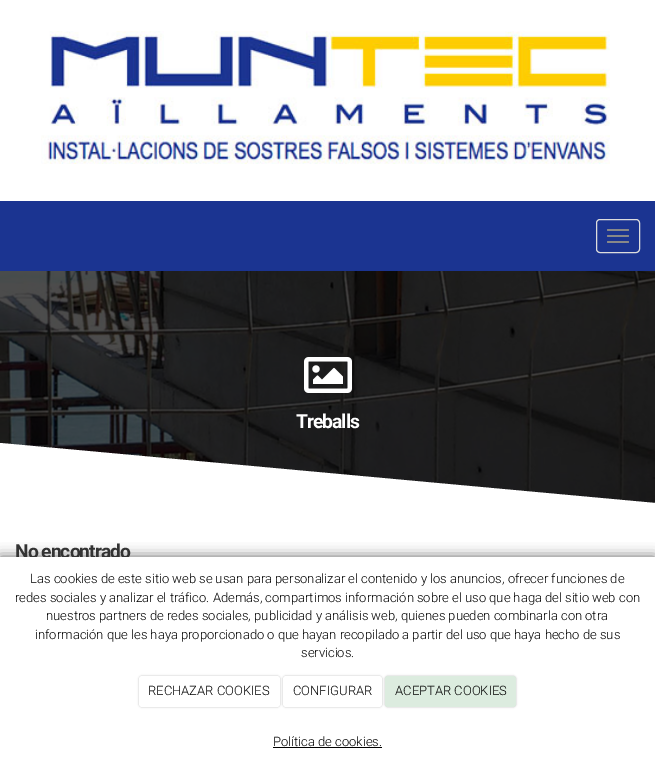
%!PS
<< /PageSize [655 765] /PageUsesTransparency true >> setpagedevice
/mt/moveto load def
/li/lineto load def
/cp/closepath load def
/fl/fill load def
/st/stroke load def
/co { dup -16 bitshift 255 div exch dup -8 bitshift 255 and 255 div exch 255 and 255 div setrgbcolor } def
/fn { [ exch dup neg 0 0 3 -1 roll 0 0 ] selectfont } def
/tx { co fn moveto show } def
/bx { co rectfill } def
/al { dup .setfillconstantalpha .setstrokeconstantalpha } def
/rr { 5 dict begin { /r /h /w /y /x } { exch def } forall
  x r add y moveto x w add y 2 copy h add r arct x w add y h add x 1 index r arct
  x y h add x y r arct x y 2 copy exch w add exch r arct closepath end } def
/sh { 12 dict begin { /a /b /q /h /w /y /x } { exch def } forall gsave /was 0 def
  9 -2 -9 { dup b mul 4 div /e exch def 1 sub .425 mul 2.718 exch exp 1 add a .99 .min exch div /now exch def
    1 1 now sub 1 was sub div sub al /was now def
    w h .min e 2 mul add 0 gt { x e sub y e sub w e 2 mul add h e 2 mul add
      q e add b .6 mul add w h .min 2 div e add .min 0 .max rr fill } if } for grestore end } def
/im { 5 dict begin { /h /w /y /x /name } { exch def } forall
  gsave x y translate w h scale
  w h 8 [w 0 0 h 0 0] name (r) file false 3 colorimage grestore end } def
0 .pushpdf14devicefilter
0 765 translate 1 -1 scale
4 setmiterlimit
0 0 655 765 16#FFFFFF bx
(media/1.raw) 41 31 569 133 im
0 201 655 70 16#1B3491 bx
16#DDDDDD co
596.5 219.5 43 33 3.5 rr st
16#888888 co
607 229 22 2 1 rr fl
607 235 22 2 1 rr fl
607 241 22 2 1 rr fl
(media/2.raw) 0 271 655 232 im
(media/3.raw) 304 357 48 36 im
16#FFFFFF co
0 443 mt 0 503 li 655 503 li cp fl
16#000000 co
0 557 655 208 0 6.5 .6 sh
/Roboto-Bold 19.25 fn
16#FFFFFF co
296 428 mt -1 0 (Treballs) ashow
16#333333 co
15 558 mt -1 0 (No encontrado) ashow
0 557 655 208 16#FFFFFF bx
(Las cookies de este sitio web se usan para personalizar el contenido y los anuncios, ofrecer funciones de) 30 583 /Roboto-Light 13 16#000000 tx
(redes sociales y analizar el tráfico. Además, compartimos información sobre el uso que haga del sitio web con) 15 602 /Roboto-Light 13 16#000000 tx
(nuestros partners de redes sociales, publicidad y análisis web, quienes pueden combinarla con otra) 46 620 /Roboto-Light 13 16#000000 tx
(información que les haya proporcionado o que hayan recopilado a partir del uso que haya hecho de sus) 35 639 /Roboto-Light 13 16#000000 tx
(servicios.) 301 657 /Roboto-Light 13 16#000000 tx
139 676 141 31 3 1 .25 sh
16#FFFFFF co
139 676 141 31 3 rr fl
(RECHAZAR COOKIES) 148 695 /Roboto-Light 13 16#000000 tx
283 676 99 31 3 1 .25 sh
16#FFFFFF co
283 676 99 31 3 rr fl
(CONFIGURAR) 293 695 /Roboto-Light 13 16#000000 tx
385 676 131 31 3 1 .25 sh
16#DCECDF co
385 676 131 31 3 rr fl
(ACEPTAR COOKIES) 395 695 /Roboto-Light 13 16#000000 tx
(Política de cookies.) 273 746 /Roboto-Light 13 16#000000 tx
273 747 109 1 16#000000 bx
.poppdf14devicefilter showpage
